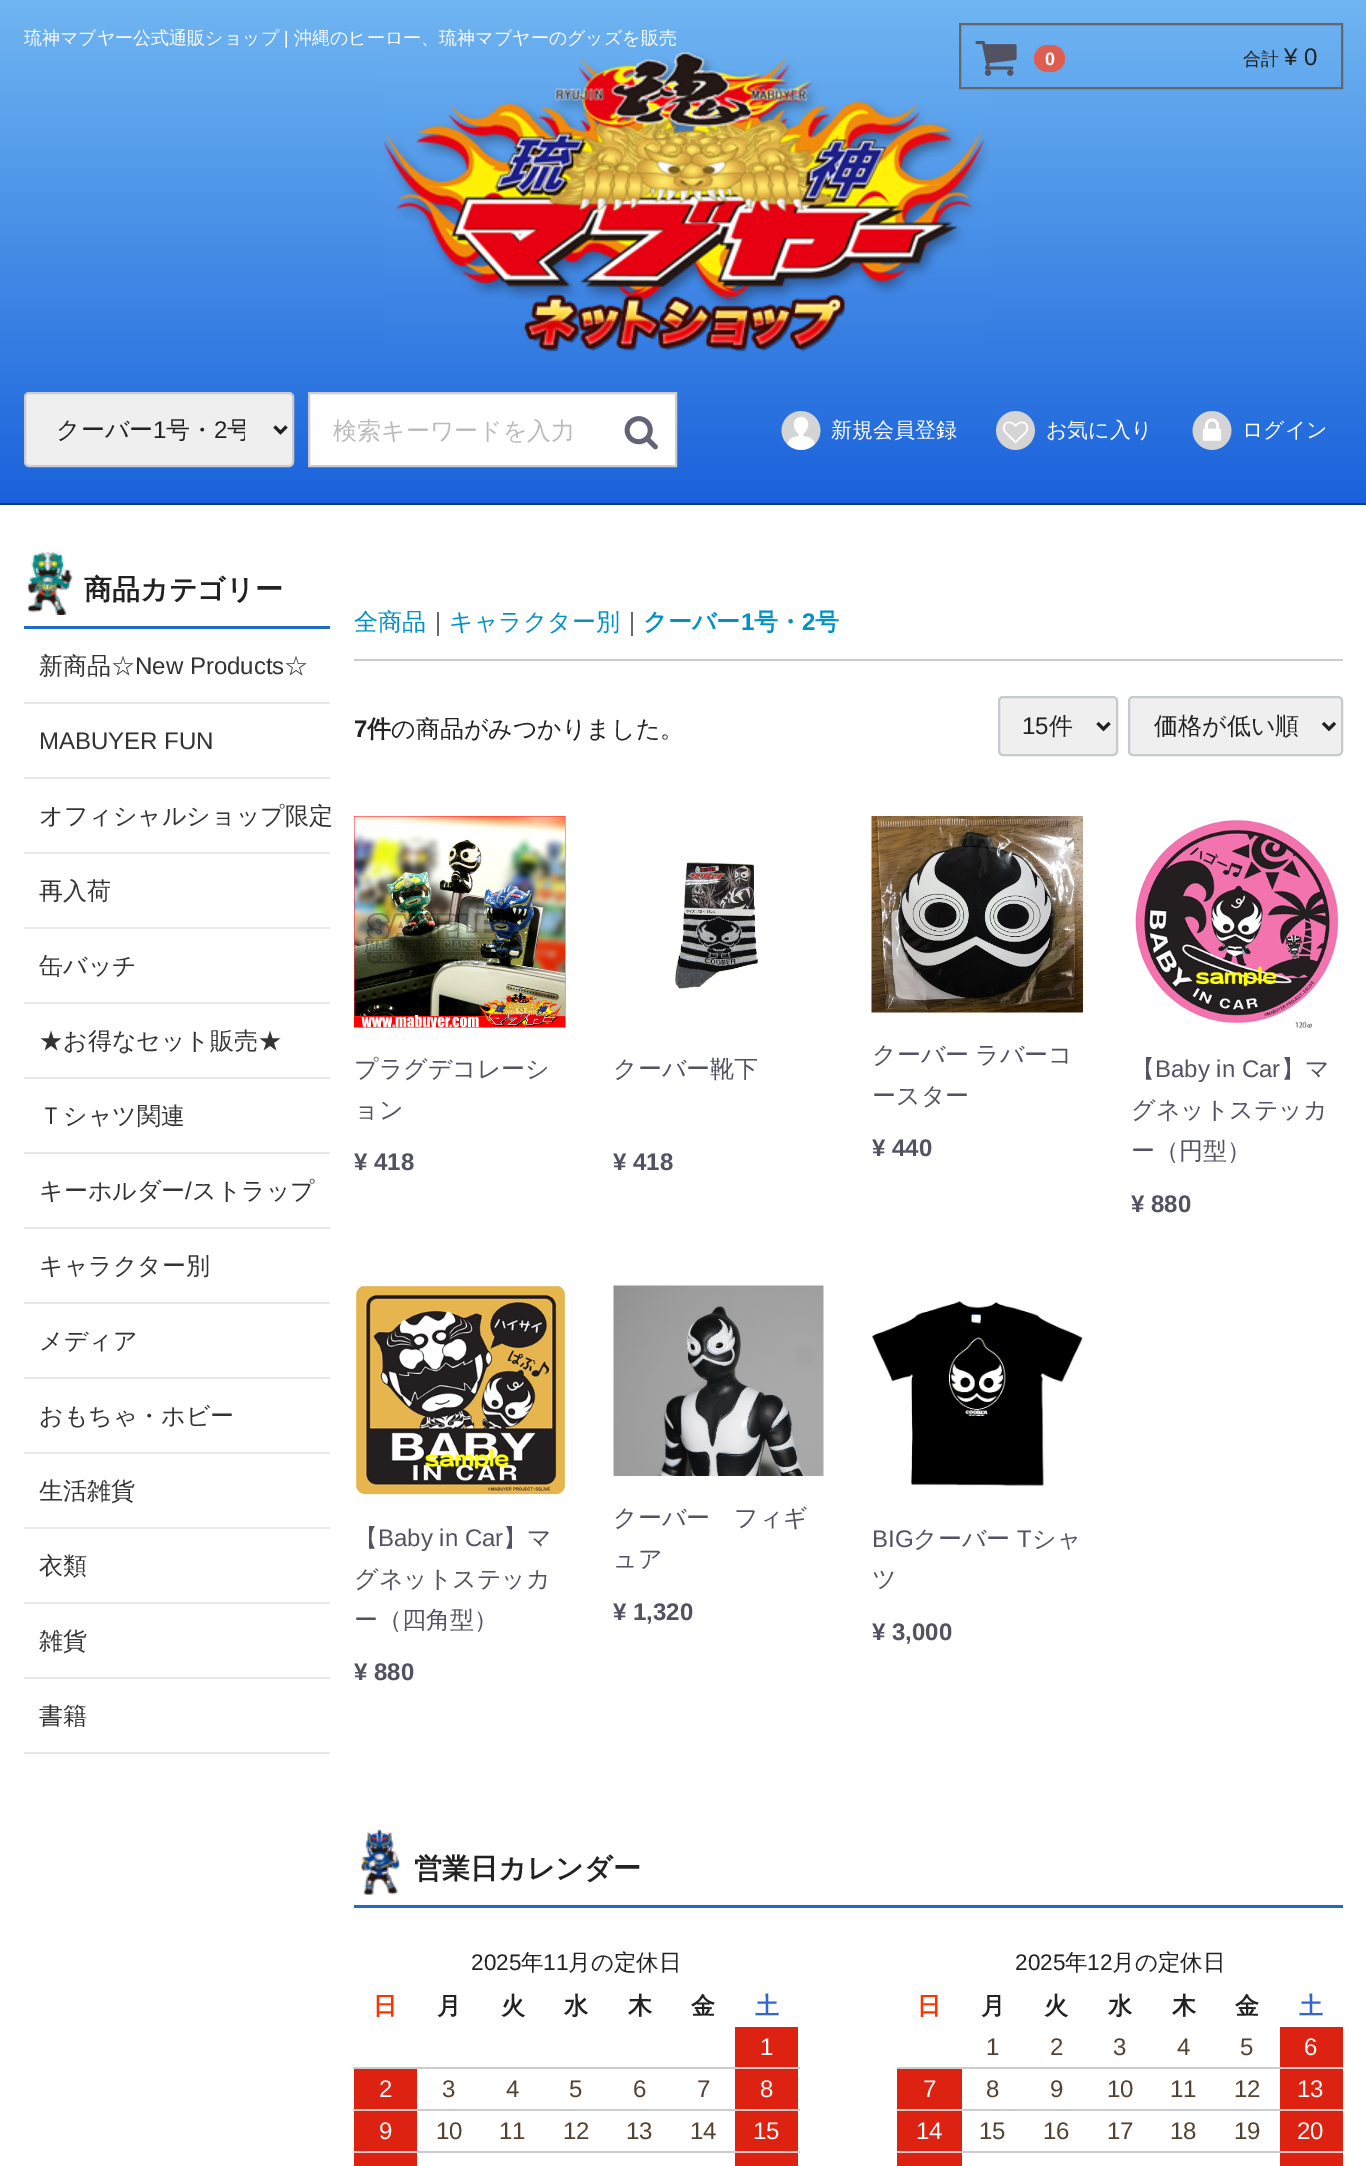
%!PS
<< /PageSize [1366 2166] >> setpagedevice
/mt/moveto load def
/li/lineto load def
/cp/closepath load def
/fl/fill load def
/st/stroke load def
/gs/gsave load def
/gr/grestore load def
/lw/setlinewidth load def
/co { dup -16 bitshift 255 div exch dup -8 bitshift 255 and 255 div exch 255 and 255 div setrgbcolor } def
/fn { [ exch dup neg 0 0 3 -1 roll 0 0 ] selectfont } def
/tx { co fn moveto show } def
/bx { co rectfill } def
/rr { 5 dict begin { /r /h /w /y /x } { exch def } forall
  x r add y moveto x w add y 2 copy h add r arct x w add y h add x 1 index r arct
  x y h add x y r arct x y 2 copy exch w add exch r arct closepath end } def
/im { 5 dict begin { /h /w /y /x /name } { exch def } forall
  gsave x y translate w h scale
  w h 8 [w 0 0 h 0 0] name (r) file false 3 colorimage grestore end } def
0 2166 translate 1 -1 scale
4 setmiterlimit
0 0 1366 2166 16#FFFFFF bx
gs 0 0 mt 1366 0 li 1366 503 li 0 503 li cp clip newpath
<< /ShadingType 2 /ColorSpace /DeviceRGB /Coords [683 0 683 503] /Extend [true true] /Function << /FunctionType 2 /Domain [0 1] /C0 [.439 .714 .949] /C1 [.102 .384 .859] /N 1 >> >> shfill gr
0 503 1366 2 16#043886 bx
(media/1.raw) 383 52 607 300 im
16#666666 co
2 lw
960 24 382 64 rectstroke
(media/2.raw) 975 41 42 35 im
16#DE5D50 co
1034 45 31 27 13.5 rr fl
16#EFEFEF co
25 393 268 73 4 rr gs fl gr
16#CCCCCC co
st
16#222222 co
3 lw
274.5 426.5 mt 280.5 432.5 li 286.5 426.5 li st
16#FFFFFF co
309 393 mt 676 393 li 676 466 li 309 466 li cp gs fl gr
16#CCCCCC co
2 lw
st
(media/3.raw) 624 416 34 34 im
(media/4.raw) 781 411 40 39 im
(media/5.raw) 996 411 39 39 im
(media/6.raw) 1192 411 40 39 im
(media/7.raw) 28 551 45 64 im
24 626 306 3 16#1F6BC8 bx
24 702 306 2 16#E8E8E8 bx
24 777 306 2 16#E8E8E8 bx
24 852 306 2 16#E8E8E8 bx
24 927 306 2 16#E8E8E8 bx
24 1002 306 2 16#E8E8E8 bx
24 1077 306 2 16#E8E8E8 bx
24 1152 306 2 16#E8E8E8 bx
24 1227 306 2 16#E8E8E8 bx
24 1302 306 2 16#E8E8E8 bx
24 1377 306 2 16#E8E8E8 bx
24 1452 306 2 16#E8E8E8 bx
24 1527 306 2 16#E8E8E8 bx
24 1602 306 2 16#E8E8E8 bx
24 1677 306 2 16#E8E8E8 bx
24 1752 306 2 16#E8E8E8 bx
354 659 989 2 16#CCCCCC bx
16#EFEFEF co
999 697 118 58 4 rr gs fl gr
16#C4CCCE co
st
16#222222 co
3 lw
1097.5 723 mt 1103.5 729 li 1109.5 723 li st
16#EFEFEF co
1129 697 213 58 4 rr gs fl gr
16#C4CCCE co
2 lw
st
16#222222 co
3 lw
1323 723 mt 1329 729 li 1335 723 li st
(media/8.raw) 354 816 212 212 im
(media/9.raw) 675 862 84 127 im
(media/10.raw) 871 816 212 197 im
(media/11.raw) 1135 819 204 209 im
(media/12.raw) 356 1286 210 209 im
(media/13.raw) 613 1285 211 191 im
(media/14.raw) 872 1301 211 186 im
(media/15.raw) 361 1829 39 66 im
354 1905 989 3 16#1F6BC8 bx
735 2027 63 40 16#DD2211 bx
353 2067 447 2 16#CCCCCC bx
354 2069 63 40 16#DD2211 bx
735 2069 63 40 16#DD2211 bx
353 2109 447 2 16#CCCCCC bx
354 2111 63 40 16#DD2211 bx
735 2111 63 40 16#DD2211 bx
353 2151 447 2 16#CCCCCC bx
354 2153 63 13 16#DD2211 bx
735 2153 63 13 16#DD2211 bx
1280 2027 63 40 16#DD2211 bx
897 2067 446 2 16#CCCCCC bx
897 2069 65 40 16#DD2211 bx
1280 2069 63 40 16#DD2211 bx
897 2109 446 2 16#CCCCCC bx
897 2111 65 40 16#DD2211 bx
1280 2111 63 40 16#DD2211 bx
897 2151 446 2 16#CCCCCC bx
897 2153 65 13 16#DD2211 bx
1280 2153 63 13 16#DD2211 bx
(琉神マブヤー公式通販ショップ) 24 44 /WenQuanYiZenHei-Medium 18 16#FFFFFF tx
(|) 284 44 /LiberationSans-Regular 18 16#FFFFFF tx
(沖縄のヒーロー、琉神マブヤーのグッズを販売) 294 44 /WenQuanYiZenHei-Medium 18 16#FFFFFF tx
(0) 1045 65 /LiberationSans-Bold 18 16#FFFFFF tx
(合計) 1243 65 /WenQuanYiZenHei-Medium 18 16#222222 tx
(¥ 0) 1284 65 /LiberationSans-Regular 24 16#222222 tx
(クーバー) 56 438 /WenQuanYiZenHei-Medium 24 16#222222 tx
(1) 153 438 /LiberationSans-Regular 24 16#222222 tx
(号・) 166 438 /WenQuanYiZenHei-Medium 24 16#222222 tx
(2) 214 438 /LiberationSans-Regular 24 16#222222 tx
gs
56 416 189 28 rectclip
(号) 227 438 /WenQuanYiZenHei-Medium 24 16#222222 tx
gr
(検索キーワードを入力) 333 439 /WenQuanYiZenHei-Medium 24 16#BBBBBB tx
(新規会員登録) 831 437 /WenQuanYiZenHei-Medium 21 16#FFFFFF tx
(お気に入り) 1046 437 /WenQuanYiZenHei-Medium 21 16#FFFFFF tx
(ログイン) 1242 437 /WenQuanYiZenHei-Medium 21 16#FFFFFF tx
(商品カテゴリー) 84 599 /WenQuanYiZenHei-Bold 28 16#222222 tx
(新商品☆) 39 674 /WenQuanYiZenHei-Medium 24 16#333333 tx
(New Products) 135 674 /LiberationSans-Regular 24 16#333333 tx
(☆) 284 674 /WenQuanYiZenHei-Medium 24 16#333333 tx
(MABUYER FUN) 39 749 /LiberationSans-Regular 24 16#333333 tx
(オフィシャルショップ限定) 39 824 /WenQuanYiZenHei-Medium 24 16#333333 tx
(再入荷) 39 899 /WenQuanYiZenHei-Medium 24 16#333333 tx
(缶バッチ) 39 974 /WenQuanYiZenHei-Medium 24 16#333333 tx
(★お得なセット販売★) 39 1049 /WenQuanYiZenHei-Medium 24 16#333333 tx
(Ｔシャツ関連) 39 1124 /WenQuanYiZenHei-Medium 24 16#333333 tx
(キーホルダー) 39 1199 /WenQuanYiZenHei-Medium 24 16#333333 tx
(/) 185 1199 /LiberationSans-Regular 24 16#333333 tx
(ストラップ) 192 1199 /WenQuanYiZenHei-Medium 24 16#333333 tx
(キャラクター別) 39 1274 /WenQuanYiZenHei-Medium 24 16#333333 tx
(メディア) 39 1349 /WenQuanYiZenHei-Medium 24 16#333333 tx
(おもちゃ・ホビー) 39 1424 /WenQuanYiZenHei-Medium 24 16#333333 tx
(生活雑貨) 39 1499 /WenQuanYiZenHei-Medium 24 16#333333 tx
(衣類) 39 1574 /WenQuanYiZenHei-Medium 24 16#333333 tx
(雑貨) 39 1649 /WenQuanYiZenHei-Medium 24 16#333333 tx
(書籍) 39 1724 /WenQuanYiZenHei-Medium 24 16#333333 tx
(全商品) 354 630 /WenQuanYiZenHei-Medium 24 16#0092C4 tx
(｜) 426 630 /WenQuanYiZenHei-Medium 24 16#333333 tx
(キャラクター別) 449 630 /WenQuanYiZenHei-Medium 24 16#0092C4 tx
(｜) 620 630 /WenQuanYiZenHei-Medium 24 16#333333 tx
(クーバー) 643 630 /WenQuanYiZenHei-Bold 24 16#0092C4 tx
(1) 741 630 /LiberationSans-Bold 24 16#0092C4 tx
(号・) 754 630 /WenQuanYiZenHei-Bold 24 16#0092C4 tx
(2) 802 630 /LiberationSans-Bold 24 16#0092C4 tx
(号) 815 630 /WenQuanYiZenHei-Bold 24 16#0092C4 tx
(7) 354 737 /LiberationSans-Bold 24 16#222222 tx
(件) 367 737 /WenQuanYiZenHei-Bold 24 16#222222 tx
(の商品がみつかりました。) 391 737 /WenQuanYiZenHei-Medium 24 16#222222 tx
(15) 1022 734 /LiberationSans-Regular 24 16#222222 tx
(件) 1049 734 /WenQuanYiZenHei-Medium 24 16#222222 tx
(価格が低い順) 1154 734 /WenQuanYiZenHei-Medium 24 16#222222 tx
(プラグデコレーシ) 354 1077 /WenQuanYiZenHei-Medium 24 16#525263 tx
(ョン) 354 1118 /WenQuanYiZenHei-Medium 24 16#525263 tx
(¥ 418) 354 1170 /LiberationSans-Bold 24 16#525263 tx
(クーバー靴下) 613 1077 /WenQuanYiZenHei-Medium 24 16#525263 tx
(¥ 418) 613 1170 /LiberationSans-Bold 24 16#525263 tx
/WenQuanYiZenHei-Medium 24 fn
872 1063 mt -1 0 32 (クーバー ラバーコ) widthshow
(ースター) 872 1104 /WenQuanYiZenHei-Medium 24 16#525263 tx
(¥ 440) 872 1156 /LiberationSans-Bold 24 16#525263 tx
(【) 1131 1077 /WenQuanYiZenHei-Medium 24 16#525263 tx
(Baby in Car) 1155 1077 /LiberationSans-Regular 24 16#525263 tx
(】マ) 1281 1077 /WenQuanYiZenHei-Medium 24 16#525263 tx
(グネットステッカ) 1131 1118 /WenQuanYiZenHei-Medium 24 16#525263 tx
(ー（円型）) 1131 1159 /WenQuanYiZenHei-Medium 24 16#525263 tx
(¥ 880) 1131 1212 /LiberationSans-Bold 24 16#525263 tx
(【) 354 1546 /WenQuanYiZenHei-Medium 24 16#525263 tx
(Baby in Car) 378 1546 /LiberationSans-Regular 24 16#525263 tx
(】マ) 503 1546 /WenQuanYiZenHei-Medium 24 16#525263 tx
(グネットステッカ) 354 1587 /WenQuanYiZenHei-Medium 24 16#525263 tx
(ー（四角型）) 354 1628 /WenQuanYiZenHei-Medium 24 16#525263 tx
(¥ 880) 354 1680 /LiberationSans-Bold 24 16#525263 tx
(クーバー　フィギ) 613 1526 /WenQuanYiZenHei-Medium 24 16#525263 tx
(ュア) 613 1567 /WenQuanYiZenHei-Medium 24 16#525263 tx
(¥ 1,320) 613 1620 /LiberationSans-Bold 24 16#525263 tx
(BIG) 872 1547 /LiberationSans-Regular 24 16#525263 tx
(クーバー) 913 1547 /WenQuanYiZenHei-Medium 24 16#525263 tx
(T) 1017 1547 /LiberationSans-Regular 24 16#525263 tx
(シャ) 1032 1547 /WenQuanYiZenHei-Medium 24 16#525263 tx
(ツ) 872 1587 /WenQuanYiZenHei-Medium 24 16#525263 tx
(¥ 3,000) 872 1640 /LiberationSans-Bold 24 16#525263 tx
(営業日カレンダー) 414 1878 /WenQuanYiZenHei-Bold 28 16#222222 tx
(2025) 471 1970 /LiberationSans-Regular 22.5 16#222222 tx
(年) 521 1970 /WenQuanYiZenHei-Medium 22.5 16#222222 tx
(11) 543 1970 /LiberationSans-Regular 22.5 16#222222 tx
(月の定休日) 568 1970 /WenQuanYiZenHei-Medium 22.5 16#222222 tx
(日) 373 2014 /WenQuanYiZenHei-Bold 24 16#FF3300 tx
(月) 437 2014 /WenQuanYiZenHei-Bold 24 16#222222 tx
(火) 501 2014 /WenQuanYiZenHei-Bold 24 16#222222 tx
(水) 564 2014 /WenQuanYiZenHei-Bold 24 16#222222 tx
(木) 628 2014 /WenQuanYiZenHei-Bold 24 16#222222 tx
(金) 691 2014 /WenQuanYiZenHei-Bold 24 16#222222 tx
(土) 755 2014 /WenQuanYiZenHei-Bold 24 16#3366CC tx
(1) 760 2055 /LiberationSans-Regular 24 16#FFFFFF tx
(2) 379 2097 /LiberationSans-Regular 24 16#FFFFFF tx
(3) 442 2097 /LiberationSans-Regular 24 16#554130 tx
(4) 506 2097 /LiberationSans-Regular 24 16#554130 tx
(5) 569 2097 /LiberationSans-Regular 24 16#554130 tx
(6) 633 2097 /LiberationSans-Regular 24 16#554130 tx
(7) 697 2097 /LiberationSans-Regular 24 16#554130 tx
(8) 760 2097 /LiberationSans-Regular 24 16#FFFFFF tx
(9) 379 2139 /LiberationSans-Regular 24 16#FFFFFF tx
(10) 436 2139 /LiberationSans-Regular 24 16#554130 tx
(11) 499 2139 /LiberationSans-Regular 24 16#554130 tx
(12) 563 2139 /LiberationSans-Regular 24 16#554130 tx
(13) 626 2139 /LiberationSans-Regular 24 16#554130 tx
(14) 690 2139 /LiberationSans-Regular 24 16#554130 tx
(15) 753 2139 /LiberationSans-Regular 24 16#FFFFFF tx
(2025) 1015 1970 /LiberationSans-Regular 22.5 16#222222 tx
(年) 1065 1970 /WenQuanYiZenHei-Medium 22.5 16#222222 tx
(12) 1087 1970 /LiberationSans-Regular 22.5 16#222222 tx
(月の定休日) 1112 1970 /WenQuanYiZenHei-Medium 22.5 16#222222 tx
(日) 917 2014 /WenQuanYiZenHei-Bold 24 16#FF3300 tx
(月) 981 2014 /WenQuanYiZenHei-Bold 24 16#222222 tx
(火) 1044 2014 /WenQuanYiZenHei-Bold 24 16#222222 tx
(水) 1108 2014 /WenQuanYiZenHei-Bold 24 16#222222 tx
(木) 1172 2014 /WenQuanYiZenHei-Bold 24 16#222222 tx
(金) 1235 2014 /WenQuanYiZenHei-Bold 24 16#222222 tx
(土) 1299 2014 /WenQuanYiZenHei-Bold 24 16#3366CC tx
(1) 986 2055 /LiberationSans-Regular 24 16#554130 tx
(2) 1050 2055 /LiberationSans-Regular 24 16#554130 tx
(3) 1113 2055 /LiberationSans-Regular 24 16#554130 tx
(4) 1177 2055 /LiberationSans-Regular 24 16#554130 tx
(5) 1240 2055 /LiberationSans-Regular 24 16#554130 tx
(6) 1304 2055 /LiberationSans-Regular 24 16#FFFFFF tx
(7) 923 2097 /LiberationSans-Regular 24 16#FFFFFF tx
(8) 986 2097 /LiberationSans-Regular 24 16#554130 tx
(9) 1050 2097 /LiberationSans-Regular 24 16#554130 tx
(10) 1107 2097 /LiberationSans-Regular 24 16#554130 tx
(11) 1170 2097 /LiberationSans-Regular 24 16#554130 tx
(12) 1234 2097 /LiberationSans-Regular 24 16#554130 tx
(13) 1297 2097 /LiberationSans-Regular 24 16#FFFFFF tx
(14) 916 2139 /LiberationSans-Regular 24 16#FFFFFF tx
(15) 979 2139 /LiberationSans-Regular 24 16#554130 tx
(16) 1043 2139 /LiberationSans-Regular 24 16#554130 tx
(17) 1107 2139 /LiberationSans-Regular 24 16#554130 tx
(18) 1170 2139 /LiberationSans-Regular 24 16#554130 tx
(19) 1234 2139 /LiberationSans-Regular 24 16#554130 tx
(20) 1297 2139 /LiberationSans-Regular 24 16#FFFFFF tx
showpage
